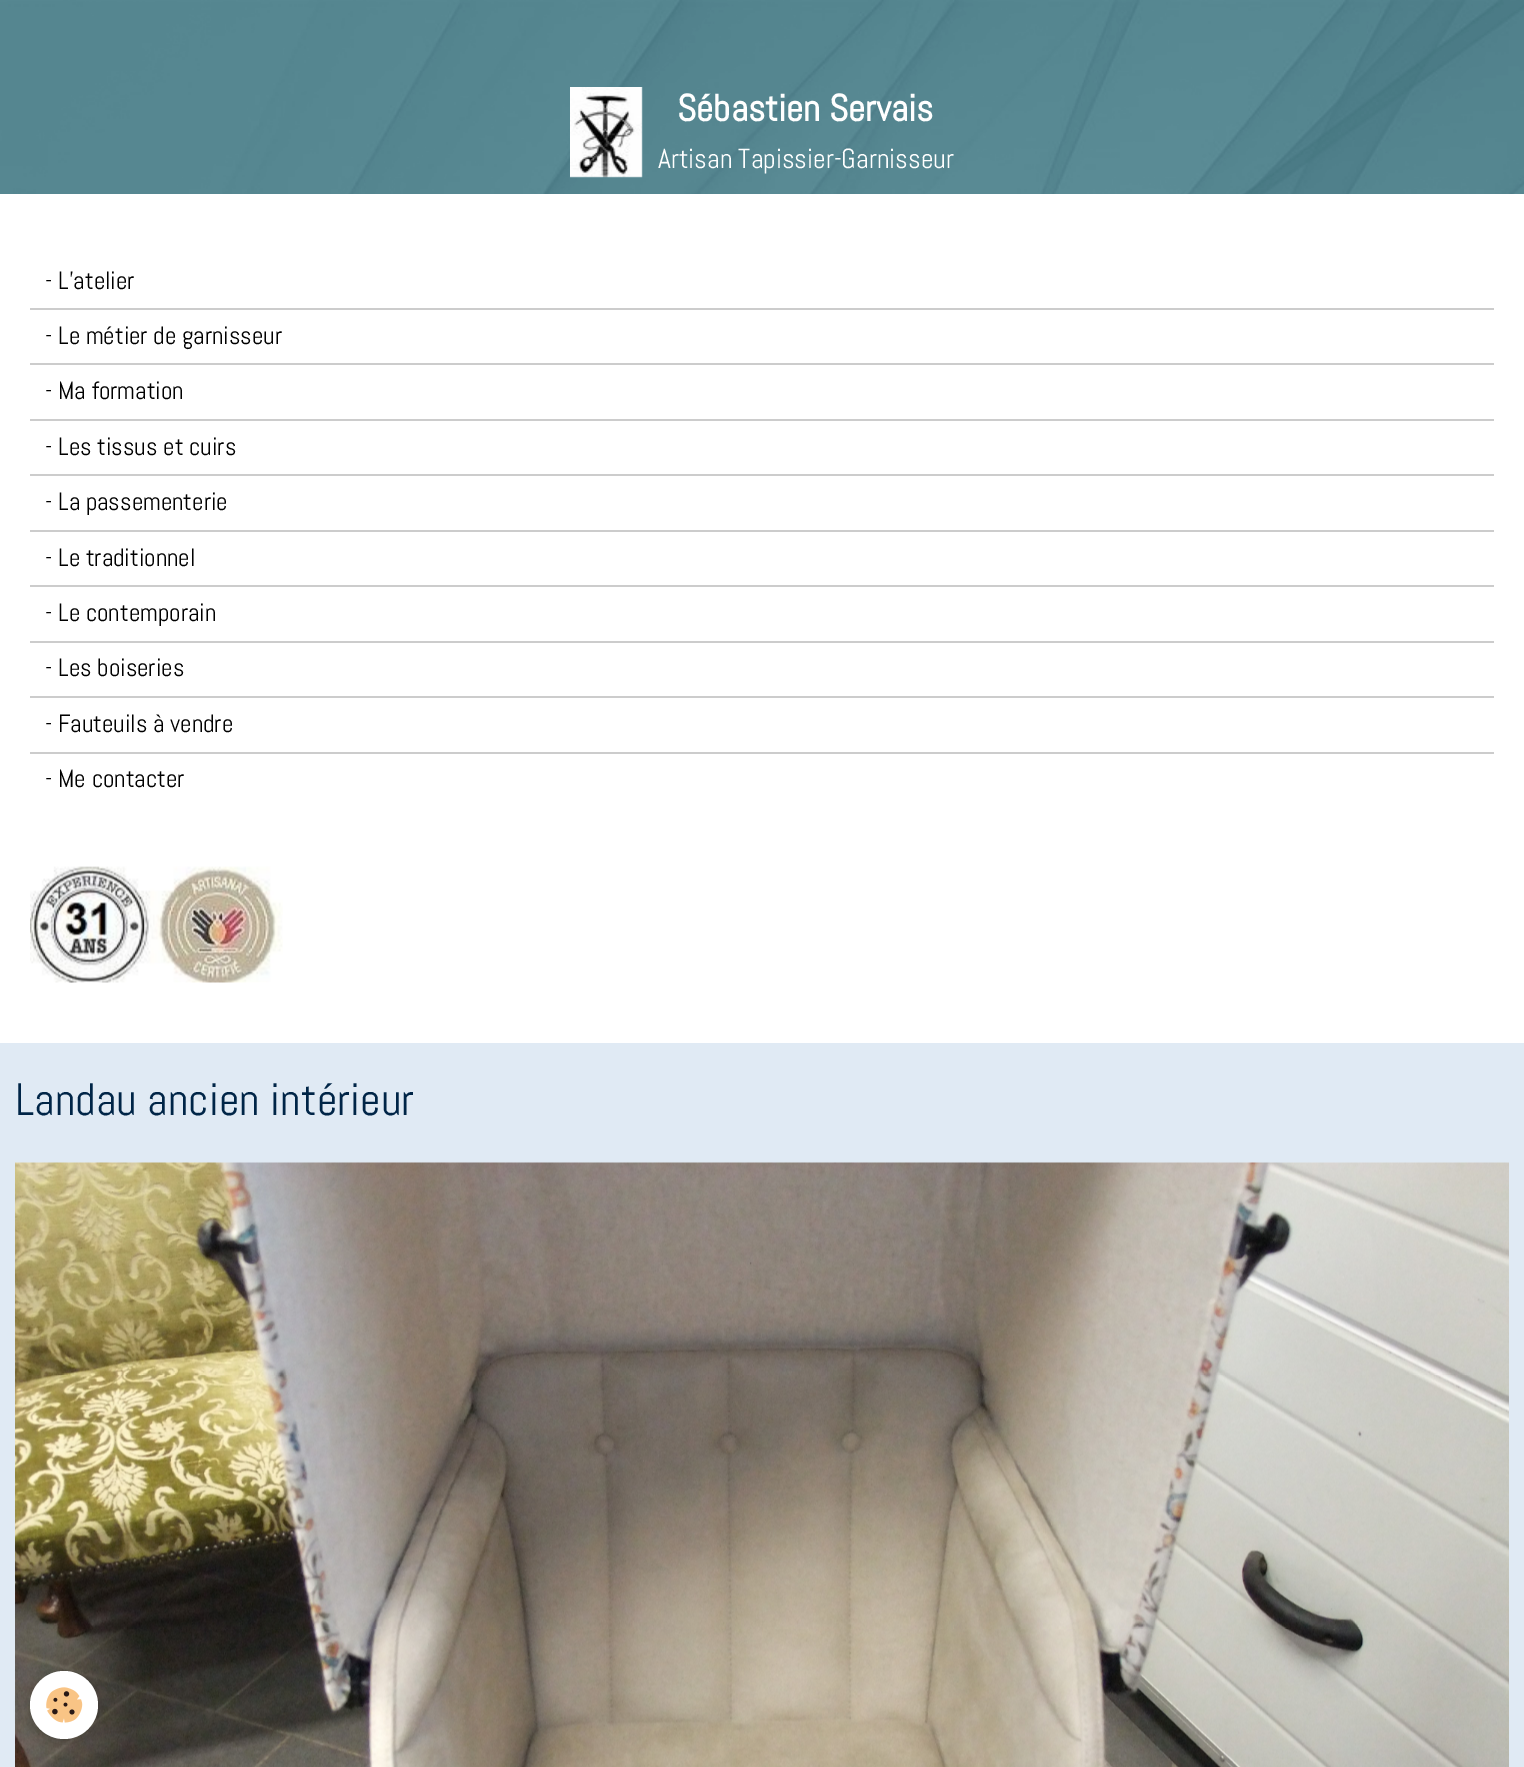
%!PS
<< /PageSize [1524 1767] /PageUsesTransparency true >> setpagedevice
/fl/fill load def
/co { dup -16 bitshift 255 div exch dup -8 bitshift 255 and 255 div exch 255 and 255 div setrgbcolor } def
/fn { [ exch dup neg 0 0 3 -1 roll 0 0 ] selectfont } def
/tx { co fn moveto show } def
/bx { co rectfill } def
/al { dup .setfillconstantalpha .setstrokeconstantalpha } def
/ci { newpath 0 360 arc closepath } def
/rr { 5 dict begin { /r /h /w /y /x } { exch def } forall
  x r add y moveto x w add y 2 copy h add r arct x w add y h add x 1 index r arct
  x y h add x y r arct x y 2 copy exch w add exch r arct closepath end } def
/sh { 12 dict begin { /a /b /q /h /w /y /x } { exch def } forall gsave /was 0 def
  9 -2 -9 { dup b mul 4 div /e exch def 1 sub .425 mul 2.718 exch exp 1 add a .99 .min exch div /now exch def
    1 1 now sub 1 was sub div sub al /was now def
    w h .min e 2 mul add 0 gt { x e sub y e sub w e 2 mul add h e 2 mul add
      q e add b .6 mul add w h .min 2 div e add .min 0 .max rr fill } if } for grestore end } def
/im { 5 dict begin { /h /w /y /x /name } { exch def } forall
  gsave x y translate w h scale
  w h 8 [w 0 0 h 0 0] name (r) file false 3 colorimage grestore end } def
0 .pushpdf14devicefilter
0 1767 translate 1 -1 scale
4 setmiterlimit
0 0 1524 1767 16#FFFFFF bx
(media/1.raw) 0 0 1524 194 im
(media/2.raw) 570 87 73 91 im
30 308 1464 2 16#CCCCCC bx
30 363 1464 2 16#CCCCCC bx
30 419 1464 2 16#CCCCCC bx
30 474 1464 2 16#CCCCCC bx
30 530 1464 2 16#CCCCCC bx
30 585 1464 2 16#CCCCCC bx
30 641 1464 2 16#CCCCCC bx
30 696 1464 2 16#CCCCCC bx
30 752 1464 2 16#CCCCCC bx
(media/3.raw) 30 866 253 117 im
0 1043 1524 724 16#E0EAF4 bx
(media/4.raw) 15 1162 1494 605 im
16#000000 co
30 1676 68 67 33.5 7.5 .24 sh
16#FFFFFF co
64 1705 34 ci fl
(media/5.raw) 46 1687 37 36 im
(Sébastien Servais) 677 121 /Abel-Bold 37.5 16#FFFFFF tx
(Artisan Tapissier-Garnisseur) 658 168 /Abel-Regular 27.6 16#FFFFFF tx
(- L'atelier) 45 289 /Abel-Regular 25.1 16#000000 tx
(- Le métier de garnisseur) 45 344 /Abel-Regular 25.1 16#000000 tx
(- Ma formation) 45 399 /Abel-Regular 25.1 16#000000 tx
(- Les tissus et cuirs) 45 455 /Abel-Regular 25.1 16#000000 tx
(- La passementerie) 45 510 /Abel-Regular 25.1 16#000000 tx
(- Le traditionnel) 45 566 /Abel-Regular 25.1 16#000000 tx
(- Le contemporain) 45 621 /Abel-Regular 25.1 16#000000 tx
(- Les boiseries) 45 676 /Abel-Regular 25.1 16#000000 tx
(- Fauteuils à vendre) 45 732 /Abel-Regular 25.1 16#000000 tx
(- Me contacter) 45 787 /Abel-Regular 25.1 16#000000 tx
(Landau ancien intérieur) 15 1115 /Abel-Regular 45.25 16#002547 tx
.poppdf14devicefilter showpage
